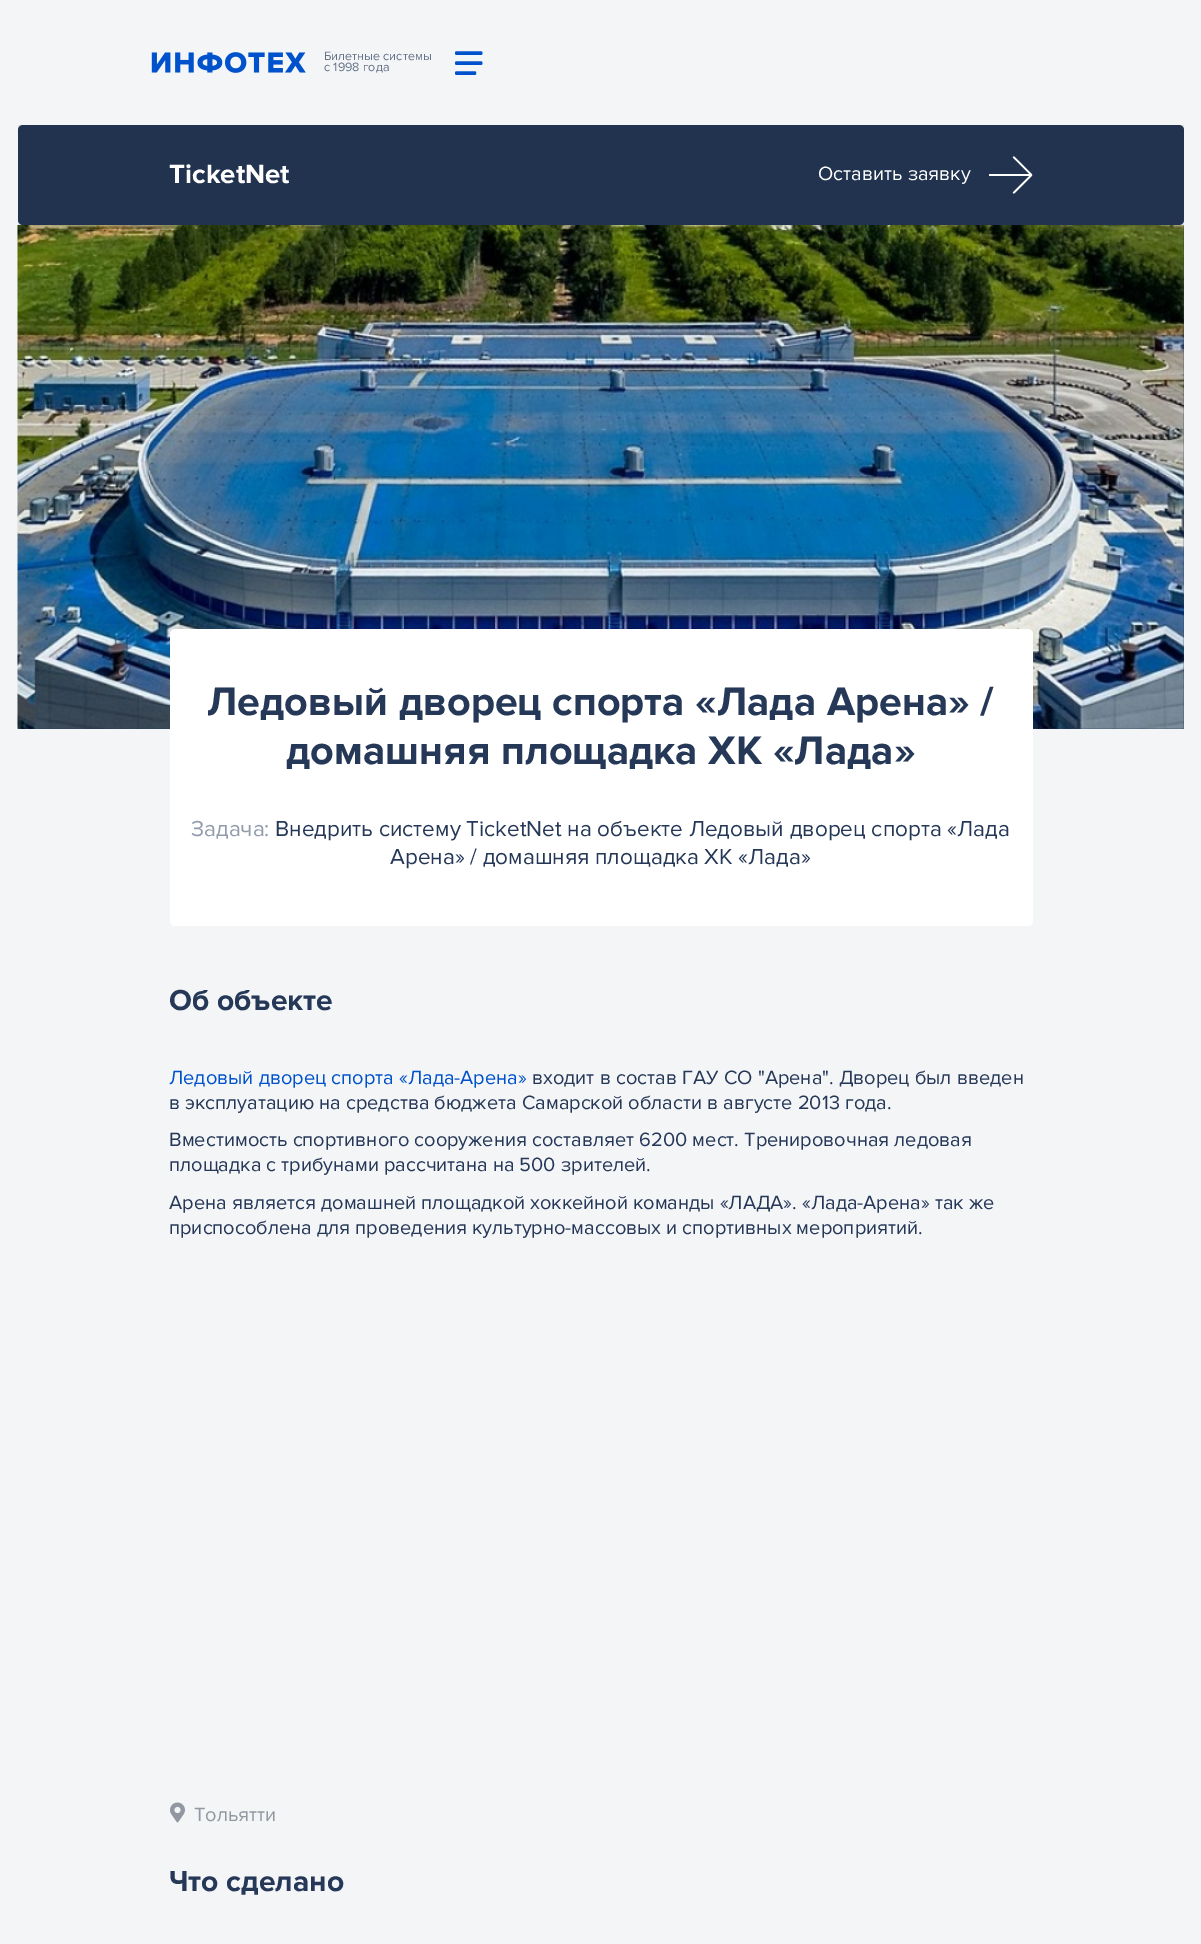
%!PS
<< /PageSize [1201 1944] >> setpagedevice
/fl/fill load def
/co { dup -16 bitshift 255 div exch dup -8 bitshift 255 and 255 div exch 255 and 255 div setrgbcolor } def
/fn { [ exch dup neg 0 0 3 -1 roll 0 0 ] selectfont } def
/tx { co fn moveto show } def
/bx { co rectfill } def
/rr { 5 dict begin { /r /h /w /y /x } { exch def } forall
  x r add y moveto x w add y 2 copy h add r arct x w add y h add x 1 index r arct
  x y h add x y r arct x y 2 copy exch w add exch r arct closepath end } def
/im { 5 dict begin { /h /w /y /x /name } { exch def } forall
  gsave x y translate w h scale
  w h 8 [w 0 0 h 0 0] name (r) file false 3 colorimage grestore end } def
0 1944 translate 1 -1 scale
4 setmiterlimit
0 0 1201 1944 16#F4F5F7 bx
18 125 1166 100 16#DEDFE1 bx
(media/1.raw) 151 52 155 21 im
(media/2.raw) 455 51 28 24 im
16#223350 co
18 125 1166 100 5 rr fl
(media/3.raw) 989 156 44 38 im
18 225 1166 504 16#253858 bx
(media/4.raw) 17 225 1167 504 im
16#FFFFFF co
170 629 863 297 5 rr fl
(media/5.raw) 170 1802 15 21 im
(Билетные системы) 324 60 /ProximaNova-Regular 12.5 16#657389 tx
(с 1998 года) 324 71 /ProximaNova-Regular 12.5 16#657389 tx
(TicketNet) 169 183 /ProximaNova-Bold 27.5 16#FFFFFF tx
(Оставить заявку) 818 180 /ProximaNova-Regular 20 16#FFFFFF tx
(Ледовый дворец спорта «Лада Арена» /) 207 715 /ProximaNova-Bold 41.25 16#253858 tx
(домашняя площадка ХК «Лада») 286 764 /ProximaNova-Bold 41.25 16#253858 tx
(Задача:) 191 836 /ProximaNova-Regular 22.5 16#929CAC tx
(Внедрить систему TicketNet на объекте Ледовый дворец спорта «Лада) 275 836 /ProximaNova-Regular 22.5 16#253858 tx
(Арена» / домашняя площадка ХК «Лада») 390 864 /ProximaNova-Regular 22.5 16#253858 tx
(Об объекте) 169 1010 /ProximaNova-Bold 30 16#253858 tx
(Ледовый дворец спорта «Лада-Арена») 169 1084 /ProximaNova-Regular 20 16#0052CC tx
(входит в состав ГАУ СО "Арена". Дворец был введен) 532 1084 /ProximaNova-Regular 20 16#253858 tx
(в эксплуатацию на средства бюджета Самарской области в августе 2013 года.) 169 1109 /ProximaNova-Regular 20 16#253858 tx
(Вместимость спортивного сооружения составляет 6200 мест. Тренировочная ледовая) 169 1146 /ProximaNova-Regular 20 16#253858 tx
(площадка с трибунами рассчитана на 500 зрителей.) 169 1171 /ProximaNova-Regular 20 16#253858 tx
(Арена является домашней площадкой хоккейной команды «ЛАДА». «Лада-Арена» так же) 169 1209 /ProximaNova-Regular 20 16#253858 tx
(приспособлена для проведения культурно-массовых и спортивных мероприятий.) 169 1234 /ProximaNova-Regular 20 16#253858 tx
(Тольятти) 194 1821 /ProximaNova-Regular 20 16#9198A1 tx
(Что сделано) 169 1891 /ProximaNova-Bold 30 16#253858 tx
showpage
